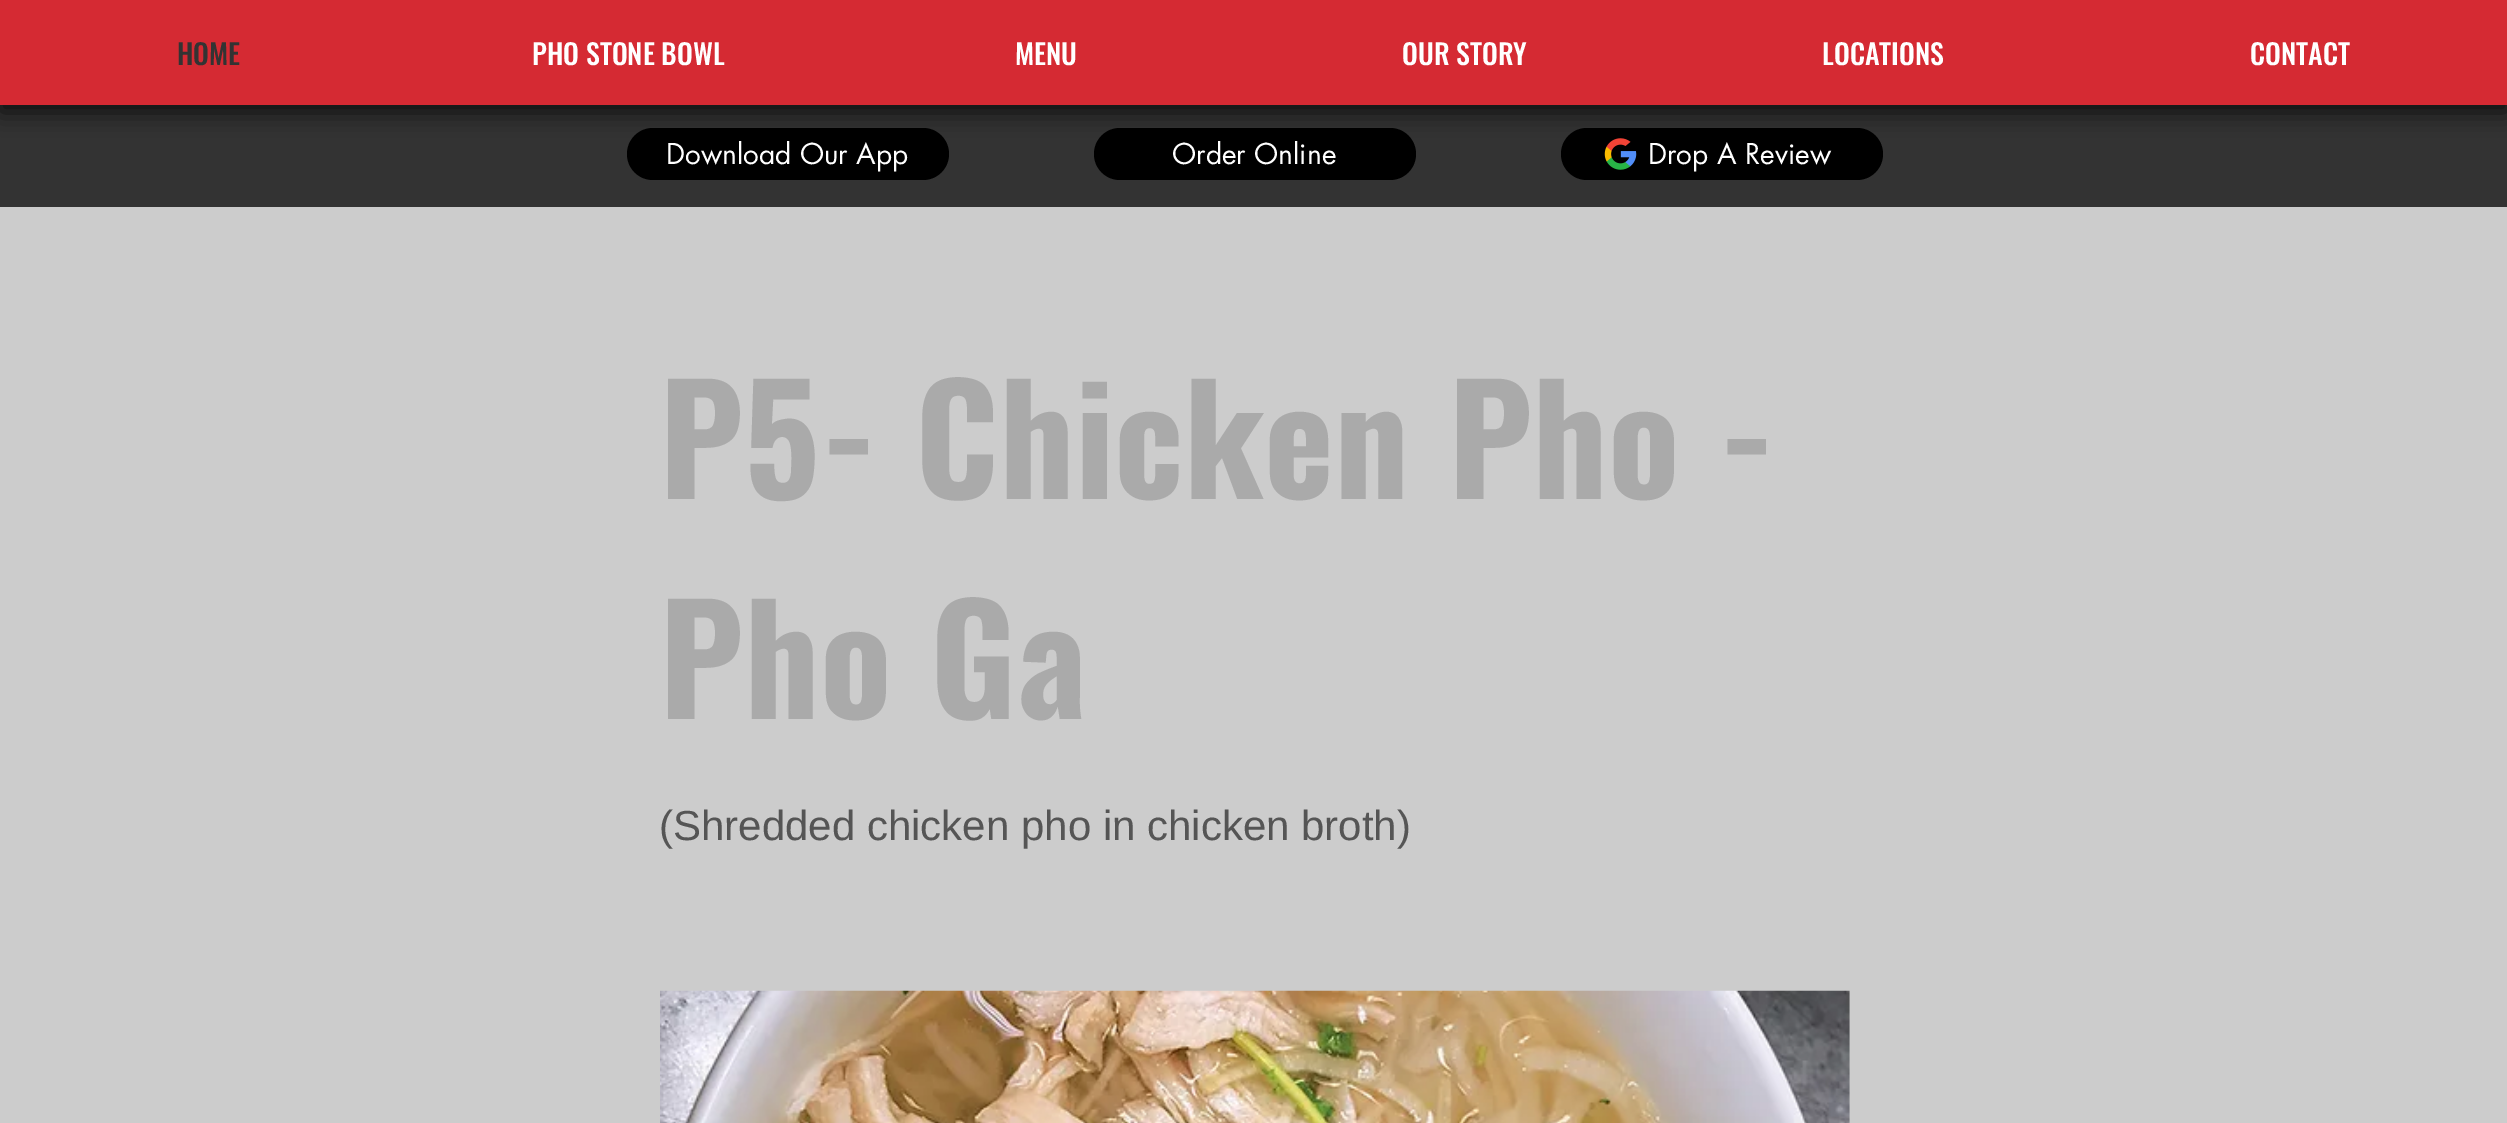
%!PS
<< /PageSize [2507 1123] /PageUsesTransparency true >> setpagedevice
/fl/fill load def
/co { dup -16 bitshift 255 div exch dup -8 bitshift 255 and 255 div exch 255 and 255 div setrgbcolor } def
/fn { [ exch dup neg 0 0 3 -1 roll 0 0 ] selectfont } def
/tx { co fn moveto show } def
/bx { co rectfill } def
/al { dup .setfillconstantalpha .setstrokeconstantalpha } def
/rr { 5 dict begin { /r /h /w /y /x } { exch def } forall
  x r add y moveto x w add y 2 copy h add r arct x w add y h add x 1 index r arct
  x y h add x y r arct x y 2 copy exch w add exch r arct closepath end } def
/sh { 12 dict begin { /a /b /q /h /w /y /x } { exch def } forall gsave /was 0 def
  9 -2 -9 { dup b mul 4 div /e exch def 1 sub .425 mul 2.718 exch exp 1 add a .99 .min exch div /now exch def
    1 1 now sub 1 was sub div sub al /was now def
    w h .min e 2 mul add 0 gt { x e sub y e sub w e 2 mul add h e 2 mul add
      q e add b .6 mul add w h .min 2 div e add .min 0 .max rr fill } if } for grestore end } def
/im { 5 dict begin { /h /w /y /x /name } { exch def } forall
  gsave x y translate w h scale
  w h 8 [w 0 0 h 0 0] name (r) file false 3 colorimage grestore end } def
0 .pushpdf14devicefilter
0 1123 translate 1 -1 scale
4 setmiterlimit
0 0 2507 1123 16#CCCCCC bx
0 105 2507 102 16#333333 bx
16#000000 co
0 7 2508 105 0 11.5 .73 sh
0 0 2507 105 16#D52A33 bx
16#000000 co
627 128 322 52 26 rr fl
1094 128 322 52 26 rr fl
1561 128 322 52 26 rr fl
(media/1.raw) 1604 138 33 32 im
(media/2.raw) 660 990 1190 133 im
(HOME) 177 65 /Oswald-Medium 28 16#333333 tx
(PHO STONE BOWL) 532 65 /Oswald-Medium 28 16#FFFFFF tx
(MENU) 1015 65 /Oswald-Medium 28 16#FFFFFF tx
(OUR STORY) 1402 65 /Oswald-Medium 28 16#FFFFFF tx
(LOCATIONS) 1822 65 /Oswald-Medium 28 16#FFFFFF tx
(CONTACT) 2250 65 /Oswald-Medium 28 16#FFFFFF tx
(Download Our App) 666 164 /futura-Regular 28 16#FFFFFF tx
(Order Online) 1172 164 /futura-Regular 28 16#FFFFFF tx
(Drop A Review) 1648 164 /futura-Regular 28 16#FFFFFF tx
(P5- Chicken Pho -) 659 499 /Oswald-Bold 148.75 16#AAAAAA tx
(Pho Ga) 659 719 /Oswald-Bold 148.75 16#AAAAAA tx
(\(Shredded chicken pho in chicken broth\)) 659 840 /LiberationSans-Regular 42 16#555555 tx
.poppdf14devicefilter showpage
